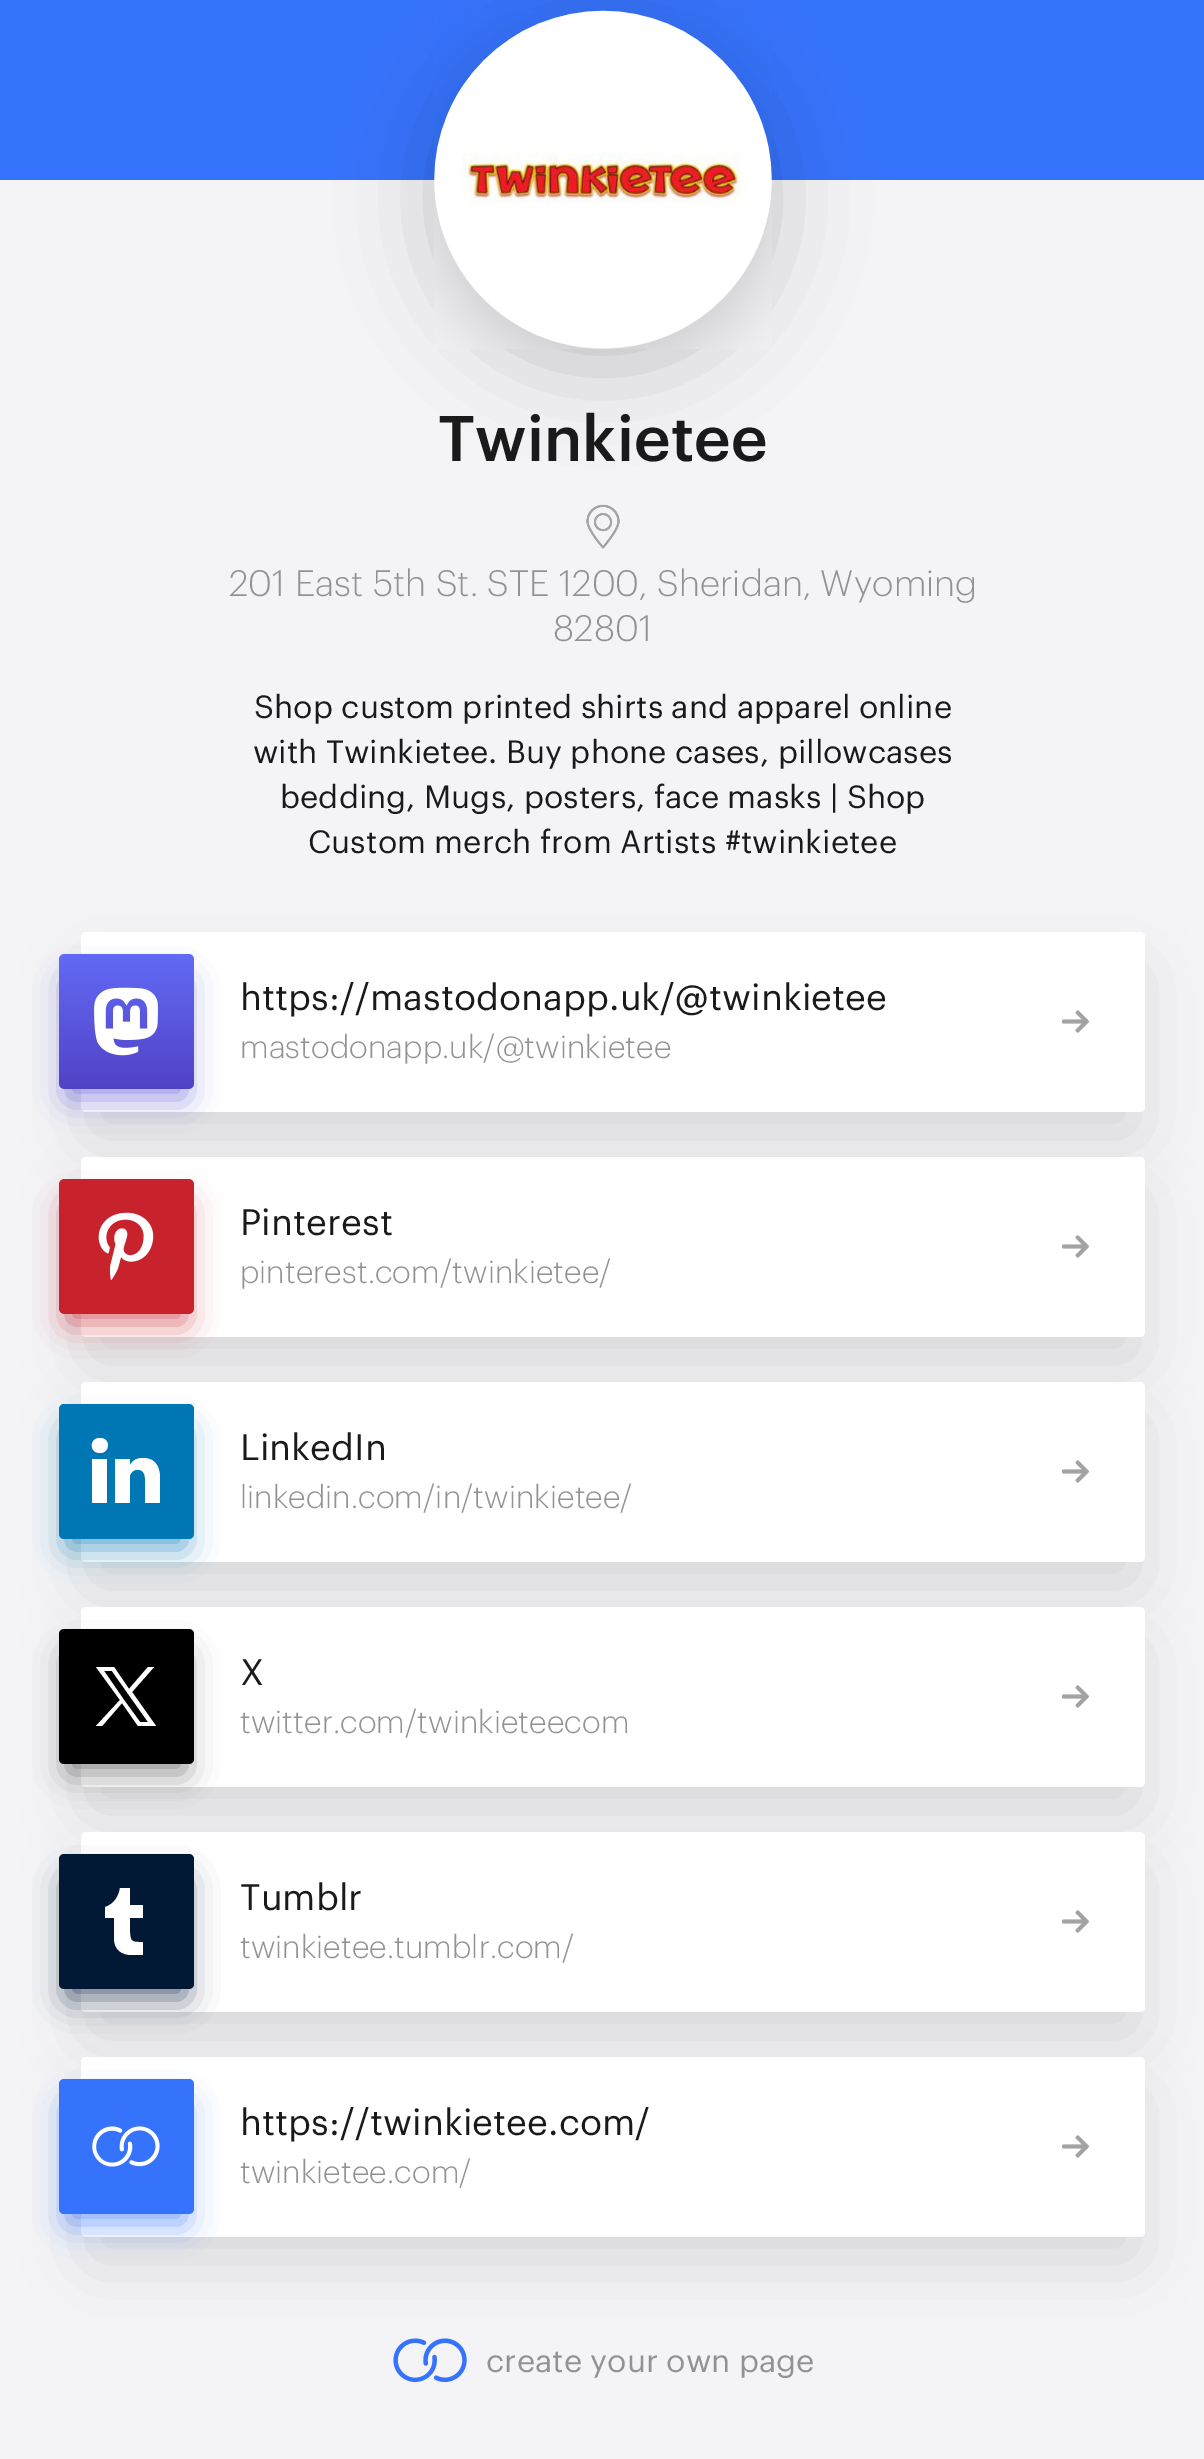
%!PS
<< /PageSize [1204 2459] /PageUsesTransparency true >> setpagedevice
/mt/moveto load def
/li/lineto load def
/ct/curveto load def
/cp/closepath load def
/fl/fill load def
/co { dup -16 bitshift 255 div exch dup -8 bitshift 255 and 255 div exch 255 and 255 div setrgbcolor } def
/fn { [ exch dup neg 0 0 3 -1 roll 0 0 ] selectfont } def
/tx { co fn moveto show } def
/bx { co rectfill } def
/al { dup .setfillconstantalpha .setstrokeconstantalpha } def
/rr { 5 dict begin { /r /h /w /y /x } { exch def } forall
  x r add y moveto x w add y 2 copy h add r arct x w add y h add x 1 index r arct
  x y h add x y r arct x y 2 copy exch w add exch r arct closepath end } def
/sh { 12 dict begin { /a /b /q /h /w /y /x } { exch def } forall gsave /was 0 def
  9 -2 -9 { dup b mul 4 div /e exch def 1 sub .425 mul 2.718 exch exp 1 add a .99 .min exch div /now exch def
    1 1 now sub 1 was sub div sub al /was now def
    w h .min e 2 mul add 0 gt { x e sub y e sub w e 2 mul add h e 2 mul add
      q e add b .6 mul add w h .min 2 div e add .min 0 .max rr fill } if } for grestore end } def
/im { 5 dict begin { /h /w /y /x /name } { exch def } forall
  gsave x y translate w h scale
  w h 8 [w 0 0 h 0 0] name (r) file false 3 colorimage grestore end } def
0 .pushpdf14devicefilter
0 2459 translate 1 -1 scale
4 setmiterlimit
0 0 1204 2459 16#F4F4F7 bx
0 0 1204 180 16#3673FC bx
16#000000 co
434 29 338 338 169 45 .21 sh
(media/1.raw) 434 10 338 339 im
(media/2.raw) 586 504 34 45 im
92 974 1042 158 0 34 .13 sh
16#FFFFFF co
81 932 1064 180 5 rr fl
16#5A57D7 co
68 981 117 117 0 16 .65 sh
(media/3.raw) 59 954 135 135 im
(media/4.raw) 1062 1010 27 23 im
16#000000 co
92 1199 1042 158 0 34 .13 sh
16#FFFFFF co
81 1157 1064 180 5 rr fl
16#C8232C co
68 1206 117 117 0 16 .65 sh
(media/5.raw) 59 1179 135 135 im
(media/4.raw) 1062 1235 27 23 im
16#000000 co
92 1424 1042 158 0 34 .13 sh
16#FFFFFF co
81 1382 1064 180 5 rr fl
16#0077B5 co
68 1431 117 117 0 16 .65 sh
59 1404 135 135 5 rr fl
16#FFFFFF co
160 1478 mt 160 1503 li 145 1503 li 145 1487 li 145 1481 147 1468 136 1470 ct 133 1470 131 1473 130 1475 ct 130 1503 li 115 1503 li 115 1459 li 130 1459 li 130 1465 li 132 1462 135 1458 143 1458 ct 153 1458 160 1464 160 1478 ct cp 100 1438 mt 89 1438 89 1453 100 1453 ct 110 1453 111 1438 100 1438 ct cp 92 1503 mt 107 1503 li 107 1459 li 92 1459 li cp fl
(media/4.raw) 1062 1460 27 23 im
16#000000 co
92 1649 1042 158 0 34 .13 sh
16#FFFFFF co
81 1607 1064 180 5 rr fl
16#505050 co
68 1656 117 117 0 16 .65 sh
16#000000 co
59 1629 135 135 5 rr fl
16#FFFFFF co
132 1692 mt 154 1667 li 148 1667 li 129 1689 li 114 1667 li 96 1667 li 120 1700 li 96 1726 li 102 1726 li 122 1703 li 138 1726 li 156 1726 li cp 124 1700 mt 104 1671 li 112 1671 li 148 1722 li 140 1722 li cp fl
(media/4.raw) 1062 1685 27 23 im
16#000000 co
92 1874 1042 158 0 34 .13 sh
16#FFFFFF co
81 1832 1064 180 5 rr fl
16#011935 co
68 1881 117 117 0 16 .65 sh
59 1854 135 135 5 rr fl
16#FFFFFF co
143 1955 mt 132 1955 li 122 1955 114 1950 114 1938 ct 114 1918 li 105 1918 li 105 1907 li 115 1904 119 1895 120 1888 ct 130 1888 li 130 1905 li 143 1905 li 143 1918 li 130 1918 li 130 1932 li 130 1943 134 1942 143 1942 ct cp fl
(media/4.raw) 1062 1910 27 23 im
(media/7.raw) 393 2338 74 45 im
16#000000 co
92 2099 1042 158 0 34 .13 sh
16#FFFFFF co
81 2057 1064 180 5 rr fl
16#3673FD co
68 2106 117 117 0 16 .65 sh
16#3673FC co
59 2079 135 135 5 rr fl
(media/6.raw) 92 2126 68 41 im
(media/4.raw) 1062 2135 27 23 im
(Twinkietee) 438 461 /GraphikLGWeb-Medium 63 16#1A1A1A tx
(201 East 5th St. STE 1200, Sheridan, Wyoming) 229 596 /GraphikLGWeb-Light 36 16#929292 tx
(82801) 553 641 /GraphikLGWeb-Light 36 16#929292 tx
(Shop custom printed shirts and apparel online) 254 718 /GraphikLGWeb-Regular 31.5 16#1A1A1A tx
(with Twinkietee. Buy phone cases, pillowcases) 253 763 /GraphikLGWeb-Regular 31.5 16#1A1A1A tx
(bedding, Mugs, posters, face masks | Shop) 280 808 /GraphikLGWeb-Regular 31.5 16#1A1A1A tx
(Custom merch from Artists #twinkietee) 308 853 /GraphikLGWeb-Regular 31.5 16#1A1A1A tx
(https://mastodonapp.uk/@twinkietee) 240 1010 /GraphikLGWeb-Regular 36 16#1A1A1A tx
(mastodonapp.uk/@twinkietee) 240 1058 /GraphikLGWeb-Light 31.5 16#929292 tx
(Pinterest) 240 1235 /GraphikLGWeb-Regular 36 16#1A1A1A tx
(pinterest.com/twinkietee/) 240 1283 /GraphikLGWeb-Light 31.5 16#929292 tx
(LinkedIn) 240 1460 /GraphikLGWeb-Regular 36 16#1A1A1A tx
(linkedin.com/in/twinkietee/) 240 1508 /GraphikLGWeb-Light 31.5 16#929292 tx
(X) 240 1685 /GraphikLGWeb-Regular 36 16#1A1A1A tx
(twitter.com/twinkieteecom) 240 1733 /GraphikLGWeb-Light 31.5 16#929292 tx
(Tumblr) 240 1910 /GraphikLGWeb-Regular 36 16#1A1A1A tx
(twinkietee.tumblr.com/) 240 1958 /GraphikLGWeb-Light 31.5 16#929292 tx
(https://twinkietee.com/) 240 2135 /GraphikLGWeb-Regular 36 16#1A1A1A tx
(twinkietee.com/) 240 2183 /GraphikLGWeb-Light 31.5 16#929292 tx
(create your own page) 486 2372 /GraphikLGWeb-Regular 31.5 16#929292 tx
.poppdf14devicefilter showpage
